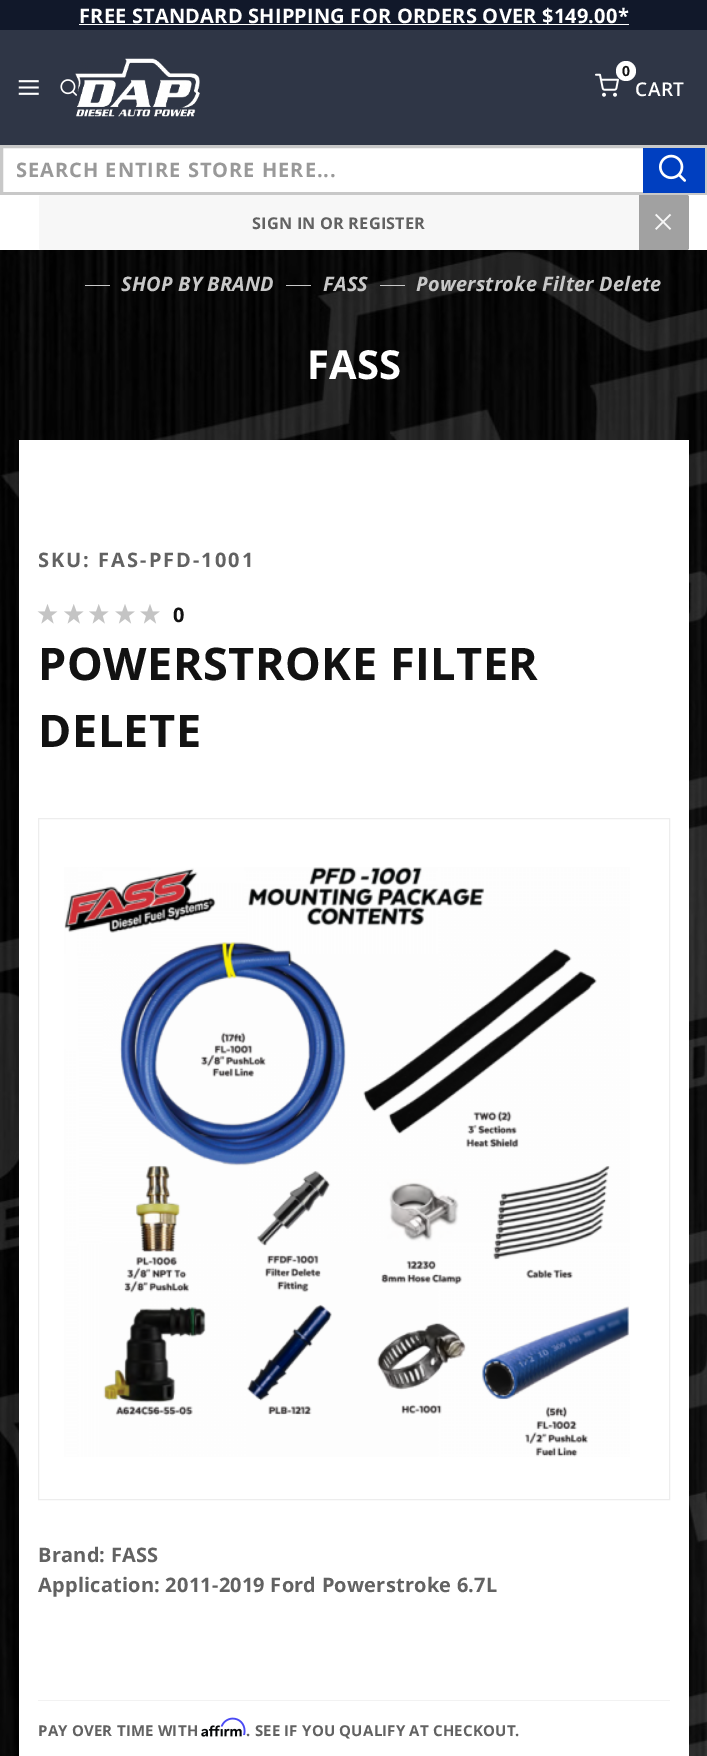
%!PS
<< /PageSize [707 1756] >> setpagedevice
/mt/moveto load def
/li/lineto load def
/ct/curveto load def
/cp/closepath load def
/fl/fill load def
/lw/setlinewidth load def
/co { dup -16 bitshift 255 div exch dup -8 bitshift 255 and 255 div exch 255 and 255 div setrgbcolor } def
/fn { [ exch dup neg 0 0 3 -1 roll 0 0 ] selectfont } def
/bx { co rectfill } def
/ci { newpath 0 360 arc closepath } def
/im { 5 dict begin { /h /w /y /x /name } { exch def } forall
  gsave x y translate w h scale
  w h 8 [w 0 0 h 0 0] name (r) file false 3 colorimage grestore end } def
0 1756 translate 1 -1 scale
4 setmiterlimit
0 0 707 1756 16#11182A bx
79 24 550 1 16#FFFFFF bx
0 30 707 115 16#2F3646 bx
(media/1.raw) 18 80 21 15 im
(media/2.raw) 60 79 17 17 im
(media/3.raw) 75 58 125 59 im
(media/4.raw) 595 73 24 24 im
16#FFFFFF co
626 71 10 ci fl
3 148 640 44 16#FFFFFF bx
16#C8C8C8 co
3 lw
1.5 146.5 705 47 rectstroke
643 148 62 45 16#003FC0 bx
(media/5.raw) 659 154 27 28 im
0 195 707 55 16#FFFFFF bx
16#F7F7F7 co
41 195 mt 639 195 li 639 250 li 41 250 li 40 250 39 249 39 248 ct 39 197 li 39 196 40 195 41 195 ct cp fl
16#A1A1A1 co
639 195 mt 687 195 li 688 195 689 196 689 197 ct 689 248 li 689 249 688 250 687 250 ct 639 250 li cp fl
(media/6.raw) 0 250 707 1506 im
85 285 25 1 16#C8C8C8 bx
286 285 25 1 16#C8C8C8 bx
380 285 25 1 16#C8C8C8 bx
19 440 670 1316 16#FFFFFF bx
(media/7.raw) 37 604 21 20 im
(media/8.raw) 64 604 20 20 im
(media/8.raw) 89 604 20 20 im
(media/9.raw) 115 604 20 20 im
(media/9.raw) 140 604 20 20 im
16#EDEDED co
1 lw
38.5 818.5 631 681 rectstroke
(media/10.raw) 64 867 566 590 im
38 1700 632 1 16#F2F2F2 bx
(media/12.raw) 201 1725 41 12 im
(media/11.raw) 220 1717 26 19 im
/OpenSans-Bold 20 fn
16#FFFFFF co
79 23 mt .2 0 (FREE STANDARD SHIPPING FOR ORDERS OVER $149.00*) ashow
/OpenSans-Bold 14 fn
16#121212 co
622 76 mt .5 0 (0) ashow
/OpenSans-SemiBold 19 fn
16#FFFFFF co
635 96 mt .5 0 (CART) ashow
/OpenSans-Bold 20 fn
16#999999 co
16 177 mt 1 0 (SEARCH ENTIRE STORE HERE...) ashow
/OpenSans-Bold 16.25 fn
16#626262 co
252 229 mt .2 0 (SIGN IN OR REGISTER) ashow
/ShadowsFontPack-Regular 16.25 fn
16#F7F7F7 co
655 229 mt 1 0 (>) ashow
/OpenSans-BoldItalic 20 fn
16#C8C8C8 co
121 291 mt .2 0 (SHOP BY BRAND) ashow
323 291 mt .2 0 (FASS) ashow
416 291 mt .2 0 (Powerstroke Filter Delete) ashow
/OpenSans-Bold 40 fn
16#FFFFFF co
307 379 mt .2 0 (FASS) ashow
/OpenSans-Bold 20 fn
16#626262 co
38 567 mt 2 0 (SKU: FAS-PFD-1001) ashow
16#121212 co
173 622 mt .2 0 (0) ashow
/OpenSans-Bold 45 fn
38 680 mt .5 0 (POWERSTROKE FILTER) ashow
38 747 mt .5 0 (DELETE) ashow
/OpenSans-Bold 20 fn
16#626262 co
38 1562 mt .2 0 (Brand: FASS) ashow
38 1592 mt .2 0 (Application: 2011-2019 Ford Powerstroke 6.7L) ashow
/OpenSans-Bold 15 fn
38 1736 mt .2 0 (PAY OVER TIME WITH) ashow
246 1736 mt .2 0 (. SEE IF YOU QUALIFY AT CHECKOUT.) ashow
showpage
